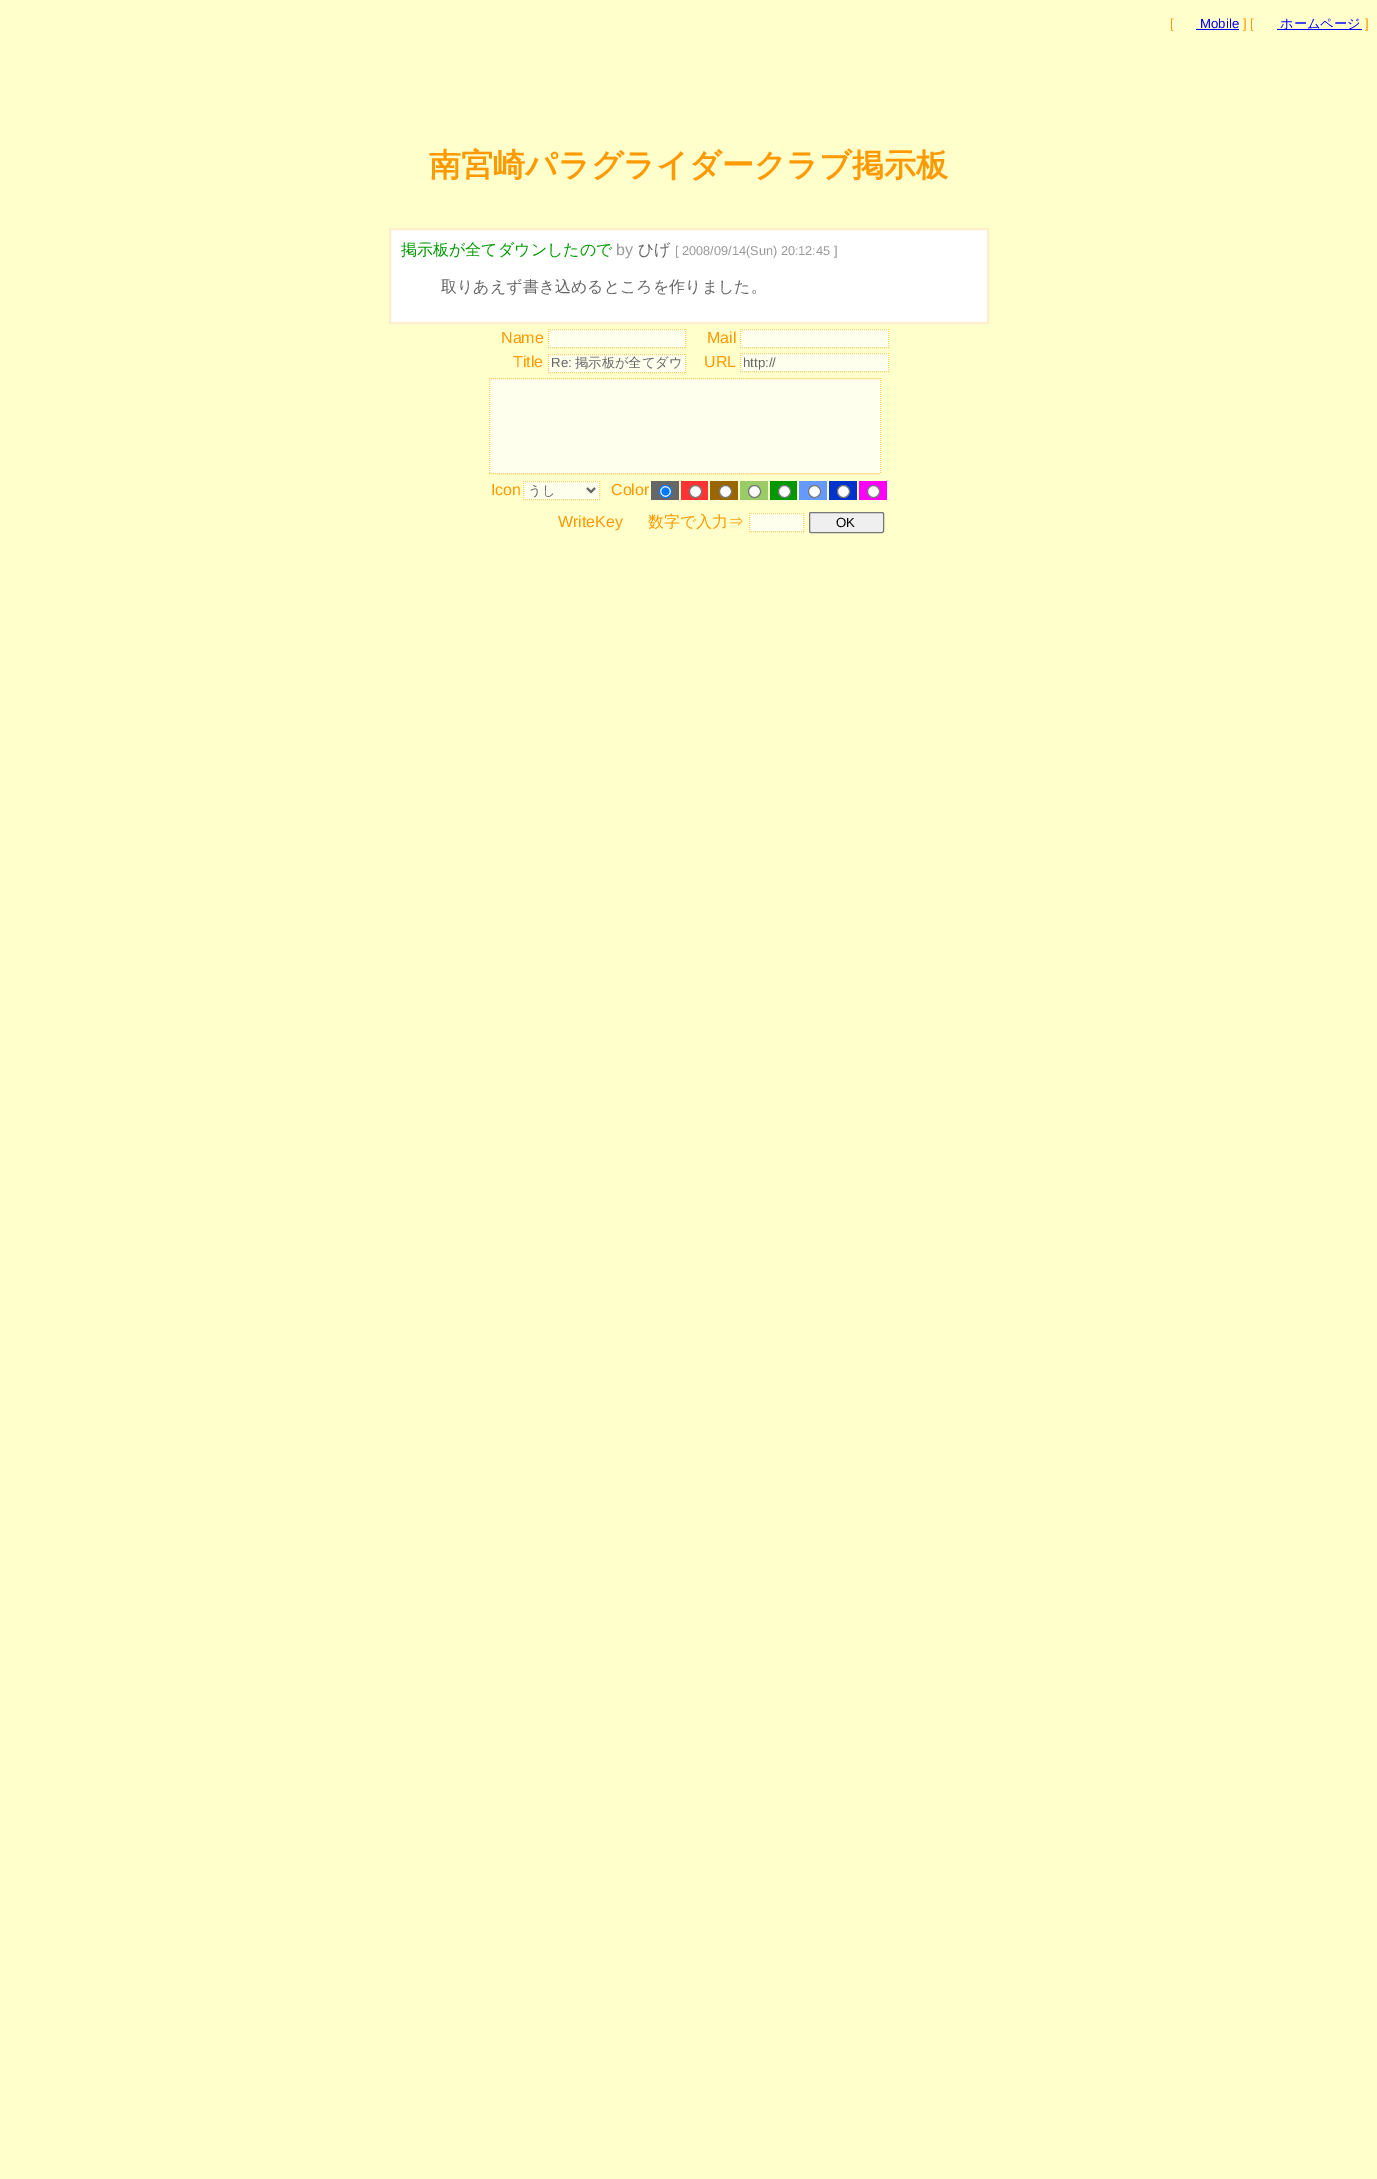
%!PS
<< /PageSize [1377 2179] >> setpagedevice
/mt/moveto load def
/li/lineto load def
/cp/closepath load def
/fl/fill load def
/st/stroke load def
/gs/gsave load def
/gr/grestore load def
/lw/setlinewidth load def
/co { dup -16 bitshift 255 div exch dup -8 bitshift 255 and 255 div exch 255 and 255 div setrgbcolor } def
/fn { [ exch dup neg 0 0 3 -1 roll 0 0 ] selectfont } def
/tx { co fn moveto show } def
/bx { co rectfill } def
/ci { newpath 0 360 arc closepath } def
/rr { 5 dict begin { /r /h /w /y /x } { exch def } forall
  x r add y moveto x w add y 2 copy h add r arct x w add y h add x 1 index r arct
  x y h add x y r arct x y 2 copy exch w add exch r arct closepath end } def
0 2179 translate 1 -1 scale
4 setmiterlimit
0 0 1377 2179 16#FFFFCC bx
1196 29 43 1 16#0000FF bx
1277 29 85 1 16#0000FF bx
16#FFFFFF co
390 229 mt 988 229 li 988 323 li 390 323 li cp gs fl gr
16#FFEECC co
2 lw
st
548 329 138 19 16#FFFFEE bx
16#FFCC66 co
1 lw
[1 1] 0 setdash
548 329.5 mt 686 329.5 li st
685.5 329 mt 685.5 348 li st
548 347.5 mt 686 347.5 li st
548.5 329 mt 548.5 348 li st
740 329 149 19 16#FFFFEE bx
16#FFCC66 co
740 329.5 mt 889 329.5 li st
888.5 329 mt 888.5 348 li st
740 347.5 mt 889 347.5 li st
740.5 329 mt 740.5 348 li st
548 354 138 19 16#FFFFEE bx
16#FFCC66 co
548 354.5 mt 686 354.5 li st
685.5 354 mt 685.5 373 li st
548 372.5 mt 686 372.5 li st
548.5 354 mt 548.5 373 li st
740 353 149 19 16#FFFFEE bx
16#FFCC66 co
740 353.5 mt 889 353.5 li st
888.5 353 mt 888.5 372 li st
740 371.5 mt 889 371.5 li st
740.5 353 mt 740.5 372 li st
489 378 392 96 16#FFFFEE bx
16#FFCC66 co
489 378.5 mt 881 378.5 li st
880.5 378 mt 880.5 474 li st
489 473.5 mt 881 473.5 li st
489.5 378 mt 489.5 474 li st
523 481 77 19 16#FFFFEE bx
16#FFCC66 co
523 481.5 mt 600 481.5 li st
599.5 481 mt 599.5 500 li st
523 499.5 mt 600 499.5 li st
523.5 481 mt 523.5 500 li st
16#666666 co
2 lw
[] 0 setdash
587 488 mt 591 492 li 595 488 li st
651 481 28 19 16#666666 bx
16#FFFFFF co
665.5 491.5 6 ci gs fl gr
16#0075FF co
1 lw
st
665.5 491.5 4 ci fl
681 481 27 19 16#FF3333 bx
16#FFFFFF co
695.5 491.5 6 ci gs fl gr
16#767676 co
st
710 481 28 19 16#996600 bx
16#FFFFFF co
725.5 491.5 6 ci gs fl gr
16#767676 co
st
740 481 28 19 16#99CC66 bx
16#FFFFFF co
754.5 491.5 6 ci gs fl gr
16#767676 co
st
770 481 27 19 16#009900 bx
16#FFFFFF co
784.5 491.5 6 ci gs fl gr
16#767676 co
st
799 481 28 19 16#6699FF bx
16#FFFFFF co
814.5 491.5 6 ci gs fl gr
16#767676 co
st
829 481 28 19 16#0033CC bx
16#FFFFFF co
843.5 491.5 6 ci gs fl gr
16#767676 co
st
859 481 28 19 16#FF00FF bx
16#FFFFFF co
873.5 491.5 6 ci gs fl gr
16#767676 co
st
749 513 55 19 16#FFFFEE bx
16#FFCC66 co
[1 1] 0 setdash
749 513.5 mt 804 513.5 li 803.5 513 mt 803.5 532 li 749 531.5 mt 804 531.5 li 749.5 513 mt 749.5 532 li st
16#EFEFEF co
809.5 512.5 74 20 1.5 rr gs fl gr
16#767676 co
[] 0 setdash
st
([) 1170 28 /LiberationSans-Regular 13.25 16#FF9900 tx
(Mobile) 1200 28 /LiberationSans-Regular 13.25 16#0000FF tx
(] [) 1243 28 /LiberationSans-Regular 13.25 16#FF9900 tx
(ホームページ) 1280 28 /WenQuanYiZenHei-Medium 13.25 16#0000FF tx
(]) 1365 28 /LiberationSans-Regular 13.25 16#FF9900 tx
(南宮崎パラグライダークラブ掲示板) 429 176 /WenQuanYiZenHei-Bold 32 16#FF9900 tx
(掲示板が全てダウンしたので) 401 255 /WenQuanYiZenHei-Medium 16 16#009900 tx
(by) 616 255 /LiberationSans-Regular 16 16#999999 tx
(ひげ) 638 255 /WenQuanYiZenHei-Medium 16 16#666666 tx
([ 2008/09/14\(Sun\) 20:12:45 ]) 675 255 /LiberationSans-Regular 12.75 16#999999 tx
(取りあえず書き込めるところを作りました。) 441 292 /WenQuanYiZenHei-Medium 16 16#666666 tx
(Name) 501 343 /LiberationSans-Regular 16 16#FF9900 tx
(Mail) 707 343 /LiberationSans-Regular 16 16#FF9900 tx
(Title) 513 367 /LiberationSans-Regular 16 16#FF9900 tx
(Re:) 551 367 /LiberationSans-Regular 13.25 16#666666 tx
(掲示板が全てダウ) 575 367 /WenQuanYiZenHei-Medium 13.25 16#666666 tx
(URL) 704 367 /LiberationSans-Regular 16 16#FF9900 tx
(http://) 743 367 /LiberationSans-Regular 13.25 16#666666 tx
(Icon) 491 495 /LiberationSans-Regular 16 16#FF9900 tx
(うし) 528 495 /WenQuanYiZenHei-Medium 13.25 16#666666 tx
(Color) 611 495 /LiberationSans-Regular 16 16#FF9900 tx
(WriteKey) 558 527 /LiberationSans-Regular 16 16#FF9900 tx
(数字で入力⇒) 648 527 /WenQuanYiZenHei-Medium 16 16#FF9900 tx
(OK) 836 527 /LiberationSans-Regular 13.25 16#000000 tx
showpage
